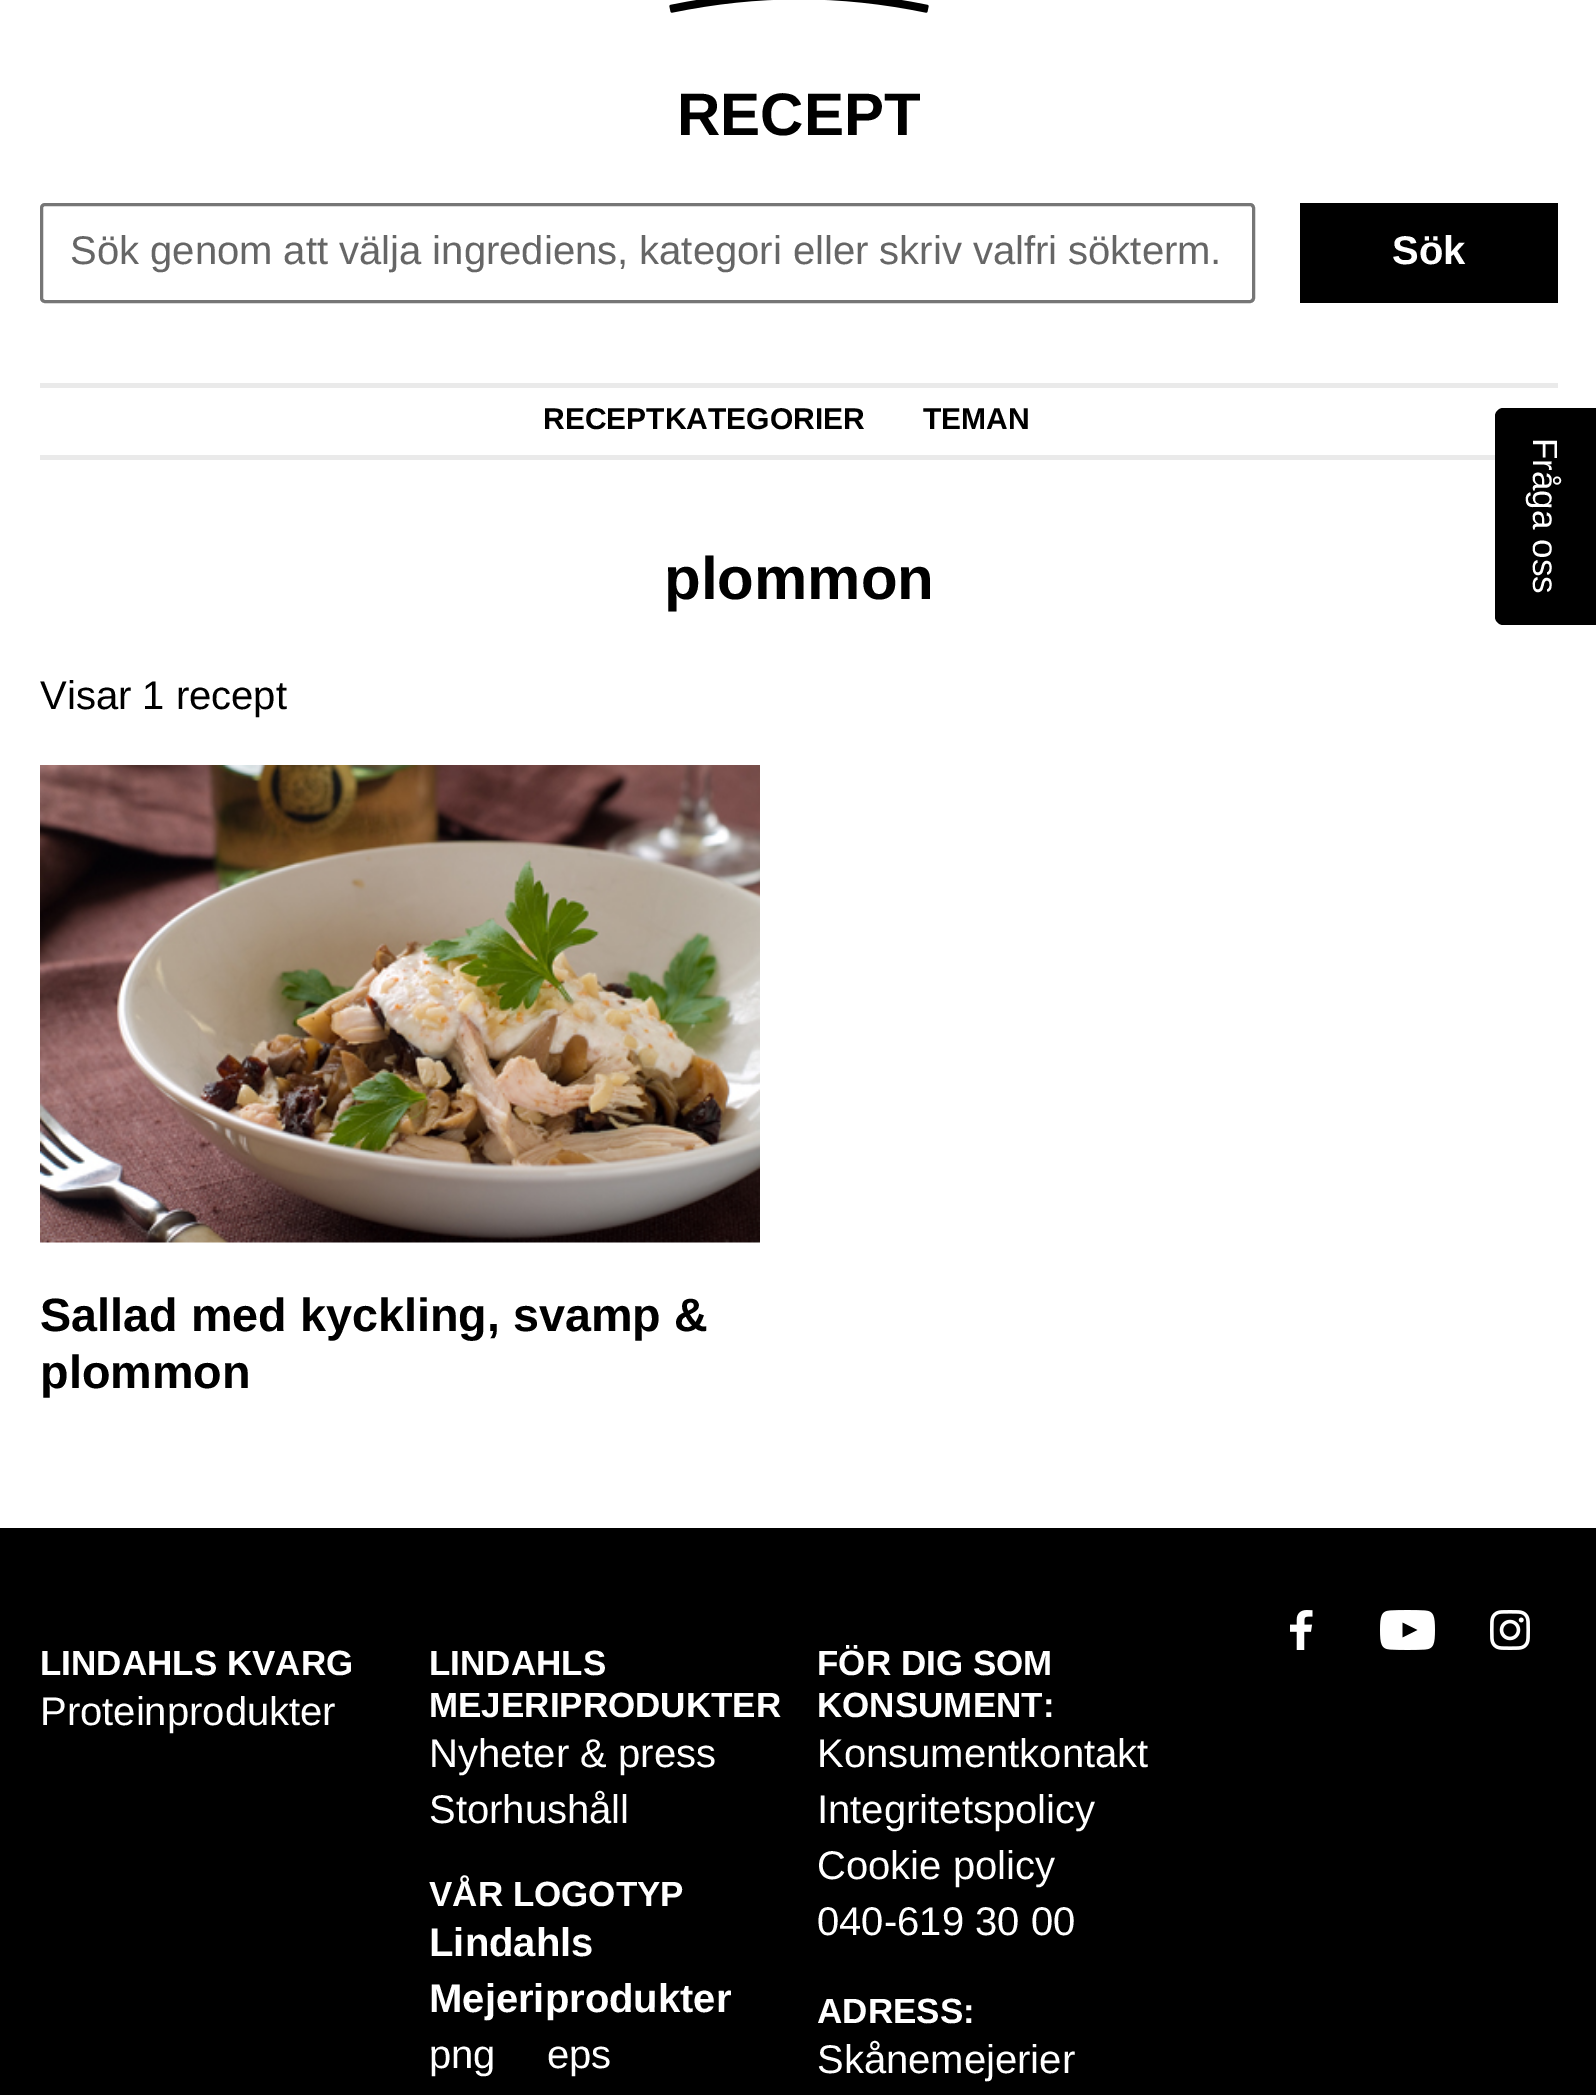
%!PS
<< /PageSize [1596 2095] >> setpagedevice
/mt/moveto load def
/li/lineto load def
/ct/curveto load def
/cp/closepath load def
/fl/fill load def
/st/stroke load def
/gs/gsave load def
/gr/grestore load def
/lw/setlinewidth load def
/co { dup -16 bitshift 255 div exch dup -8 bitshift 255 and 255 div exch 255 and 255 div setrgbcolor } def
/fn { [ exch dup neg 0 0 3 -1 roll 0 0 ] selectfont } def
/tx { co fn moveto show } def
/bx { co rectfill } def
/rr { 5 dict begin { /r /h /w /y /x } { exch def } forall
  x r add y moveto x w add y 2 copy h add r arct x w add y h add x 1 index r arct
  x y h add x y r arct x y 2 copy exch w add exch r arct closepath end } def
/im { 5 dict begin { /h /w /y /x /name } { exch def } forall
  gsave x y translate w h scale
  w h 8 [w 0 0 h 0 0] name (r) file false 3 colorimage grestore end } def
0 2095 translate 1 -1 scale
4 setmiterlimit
0 0 1596 2095 16#FFFFFF bx
(media/1.raw) 669 0 260 13 im
16#767676 co
3 lw
41.5 204.5 1212 97 3.5 rr st
1300 203 258 100 16#000000 bx
40 383 1518 5 16#EAEAEA bx
40 455 1455 5 16#EAEAEA bx
(media/2.raw) 40 765 720 478 im
0 1528 1596 567 16#000000 bx
(media/3.raw) 1290 1610 23 40 im
(media/4.raw) 1380 1610 55 40 im
(media/5.raw) 1490 1610 40 40 im
1596 408 mt 1596 625 li 1503 625 li 1499 625 1495 621 1495 617 ct 1495 416 li 1495 412 1499 408 1503 408 ct cp fl
(RECEPT) 677 135 /LiberationSans-Bold 60 16#000000 tx
(Sök genom att välja ingrediens, kategori eller skriv valfri sökterm.) 70 264 /LiberationSans-Regular 40 16#666666 tx
(Sök) 1392 264 /LiberationSans-Bold 40 16#FFFFFF tx
(RECEPTKATEGORIER) 543 429 /LiberationSans-Bold 30 16#000000 tx
(TEMAN) 923 429 /LiberationSans-Bold 30 16#000000 tx
(plommon) 664 599 /LiberationSans-Bold 60 16#000000 tx
(Visar 1 recept) 40 709 /LiberationSans-Regular 40 16#000000 tx
(Sallad med kyckling, svamp &) 40 1331 /LiberationSans-Bold 46.75 16#000000 tx
(plommon) 40 1388 /LiberationSans-Bold 46.75 16#000000 tx
(LINDAHLS KVARG) 40 1675 /LiberationSans-Bold 35 16#FFFFFF tx
(Proteinprodukter) 40 1725 /LiberationSans-Regular 40 16#FFFFFF tx
(LINDAHLS) 429 1675 /LiberationSans-Bold 35 16#FFFFFF tx
(MEJERIPRODUKTER) 429 1717 /LiberationSans-Bold 35 16#FFFFFF tx
(Nyheter & press) 429 1767 /LiberationSans-Regular 40 16#FFFFFF tx
(Storhushåll) 429 1823 /LiberationSans-Regular 40 16#FFFFFF tx
(VÅR LOGOTYP) 429 1906 /LiberationSans-Bold 35 16#FFFFFF tx
(Lindahls) 429 1956 /LiberationSans-Bold 40 16#FFFFFF tx
(Mejeriprodukter) 429 2012 /LiberationSans-Bold 40 16#FFFFFF tx
(png) 429 2068 /LiberationSans-Regular 40 16#FFFFFF tx
(eps) 547 2068 /LiberationSans-Regular 40 16#FFFFFF tx
(FÖR DIG SOM) 817 1675 /LiberationSans-Bold 35 16#FFFFFF tx
(KONSUMENT:) 817 1717 /LiberationSans-Bold 35 16#FFFFFF tx
(Konsumentkontakt) 817 1767 /LiberationSans-Regular 40 16#FFFFFF tx
(Integritetspolicy) 817 1823 /LiberationSans-Regular 40 16#FFFFFF tx
(Cookie policy) 817 1879 /LiberationSans-Regular 40 16#FFFFFF tx
(040-619 30 00) 817 1935 /LiberationSans-Regular 40 16#FFFFFF tx
(ADRESS:) 817 2023 /LiberationSans-Bold 35 16#FFFFFF tx
(Skånemejerier) 817 2073 /LiberationSans-Regular 40 16#FFFFFF tx
/LiberationSans-Regular 35 fn
gs 1533 438 translate 90 rotate 0 0 mt (Fråga oss) show gr
showpage
